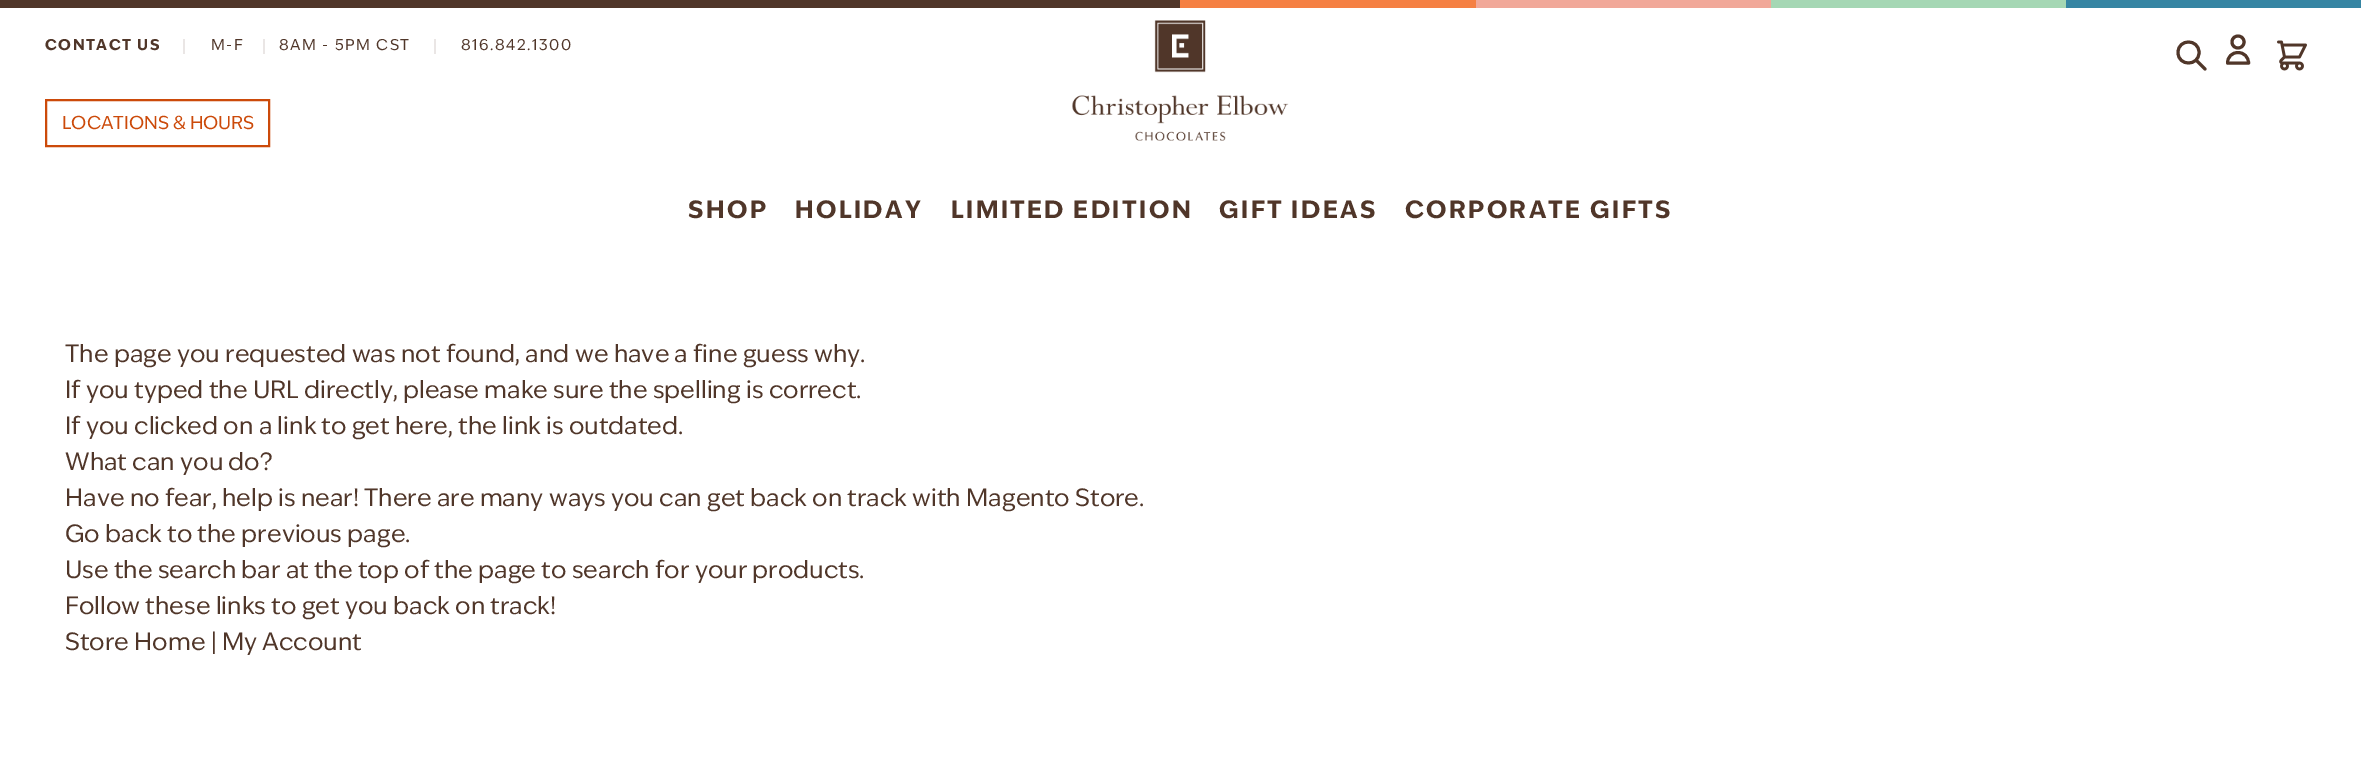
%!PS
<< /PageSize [2361 767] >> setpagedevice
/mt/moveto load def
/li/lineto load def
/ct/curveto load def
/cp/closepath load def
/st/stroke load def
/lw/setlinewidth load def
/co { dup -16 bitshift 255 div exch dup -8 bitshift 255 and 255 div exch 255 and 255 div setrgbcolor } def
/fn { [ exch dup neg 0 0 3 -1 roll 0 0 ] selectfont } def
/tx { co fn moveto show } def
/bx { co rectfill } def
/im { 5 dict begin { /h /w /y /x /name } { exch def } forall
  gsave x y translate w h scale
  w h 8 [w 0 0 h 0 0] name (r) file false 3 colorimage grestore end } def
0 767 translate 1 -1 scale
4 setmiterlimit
0 0 2361 767 16#FFFFFF bx
1180 0 296 8 16#F58043 bx
0 0 1180 8 16#503629 bx
1476 0 295 8 16#F1A899 bx
1771 0 295 8 16#A5D7B4 bx
2066 0 295 8 16#3685A3 bx
183 39 2 15 16#EAE6E5 bx
263 39 2 15 16#EAE6E5 bx
434 39 2 15 16#EAE6E5 bx
16#CC4A0A co
2 lw
46 100 223 46 rectstroke
(media/1.raw) 1072 20 217 121 im
16#503629 co
3 lw
1 setlinecap
1 setlinejoin
2205 69 mt 2196 60 li 2199 52.5 mt 2199 66.5 2178 66.5 2178 52.5 ct 2178 38.5 2199 38.5 2199 52.5 ct cp st
2244 42 mt 2244 50 2232 50 2232 42 ct 2232 34 2244 34 2244 42 ct cp 2238 52.5 mt 2232 52.5 2227.5 57 2227.5 63 ct 2248.5 63 li 2248.5 57 2244 52.5 2238 52.5 ct cp st
(media/2.raw) 2277 40 30 31 im
/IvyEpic-Bold 15 fn
45 50 mt 1.5 0 (CONTACT US) ashow
/IvyEpic-Regular 15 fn
211 50 mt 1.5 0 (M-F) ashow
279 50 mt 1.5 0 (8AM - 5PM CST) ashow
461 50 mt 1.5 0 (816.842.1300) ashow
(LOCATIONS & HOURS) 62 129 /IvyEpic-Regular 18 16#CC4A0A tx
/IvyEpic-Bold 24 fn
16#503629 co
688 218 mt 2.4 0 (SHOP) ashow
795 218 mt 2.4 0 (HOLIDAY) ashow
951 218 mt 2.4 0 (LIMITED EDITION) ashow
1219 218 mt 2.4 0 (GIFT IDEAS) ashow
1405 218 mt 2.4 0 (CORPORATE GIFTS) ashow
(The page you requested was not found, and we have a fine guess why.) 65 362 /IvyEpic-Regular 24 16#503629 tx
(If you typed the URL directly, please make sure the spelling is correct.) 65 398 /IvyEpic-Regular 24 16#503629 tx
(If you clicked on a link to get here, the link is outdated.) 65 434 /IvyEpic-Regular 24 16#503629 tx
(What can you do?) 65 470 /IvyEpic-Regular 24 16#503629 tx
(Have no fear, help is near! There are many ways you can get back on track with Magento Store.) 65 506 /IvyEpic-Regular 24 16#503629 tx
(Go back to the previous page.) 65 542 /IvyEpic-Regular 24 16#503629 tx
(Use the search bar at the top of the page to search for your products.) 65 578 /IvyEpic-Regular 24 16#503629 tx
(Follow these links to get you back on track!) 65 614 /IvyEpic-Regular 24 16#503629 tx
(Store Home | My Account) 65 650 /IvyEpic-Regular 24 16#503629 tx
showpage
